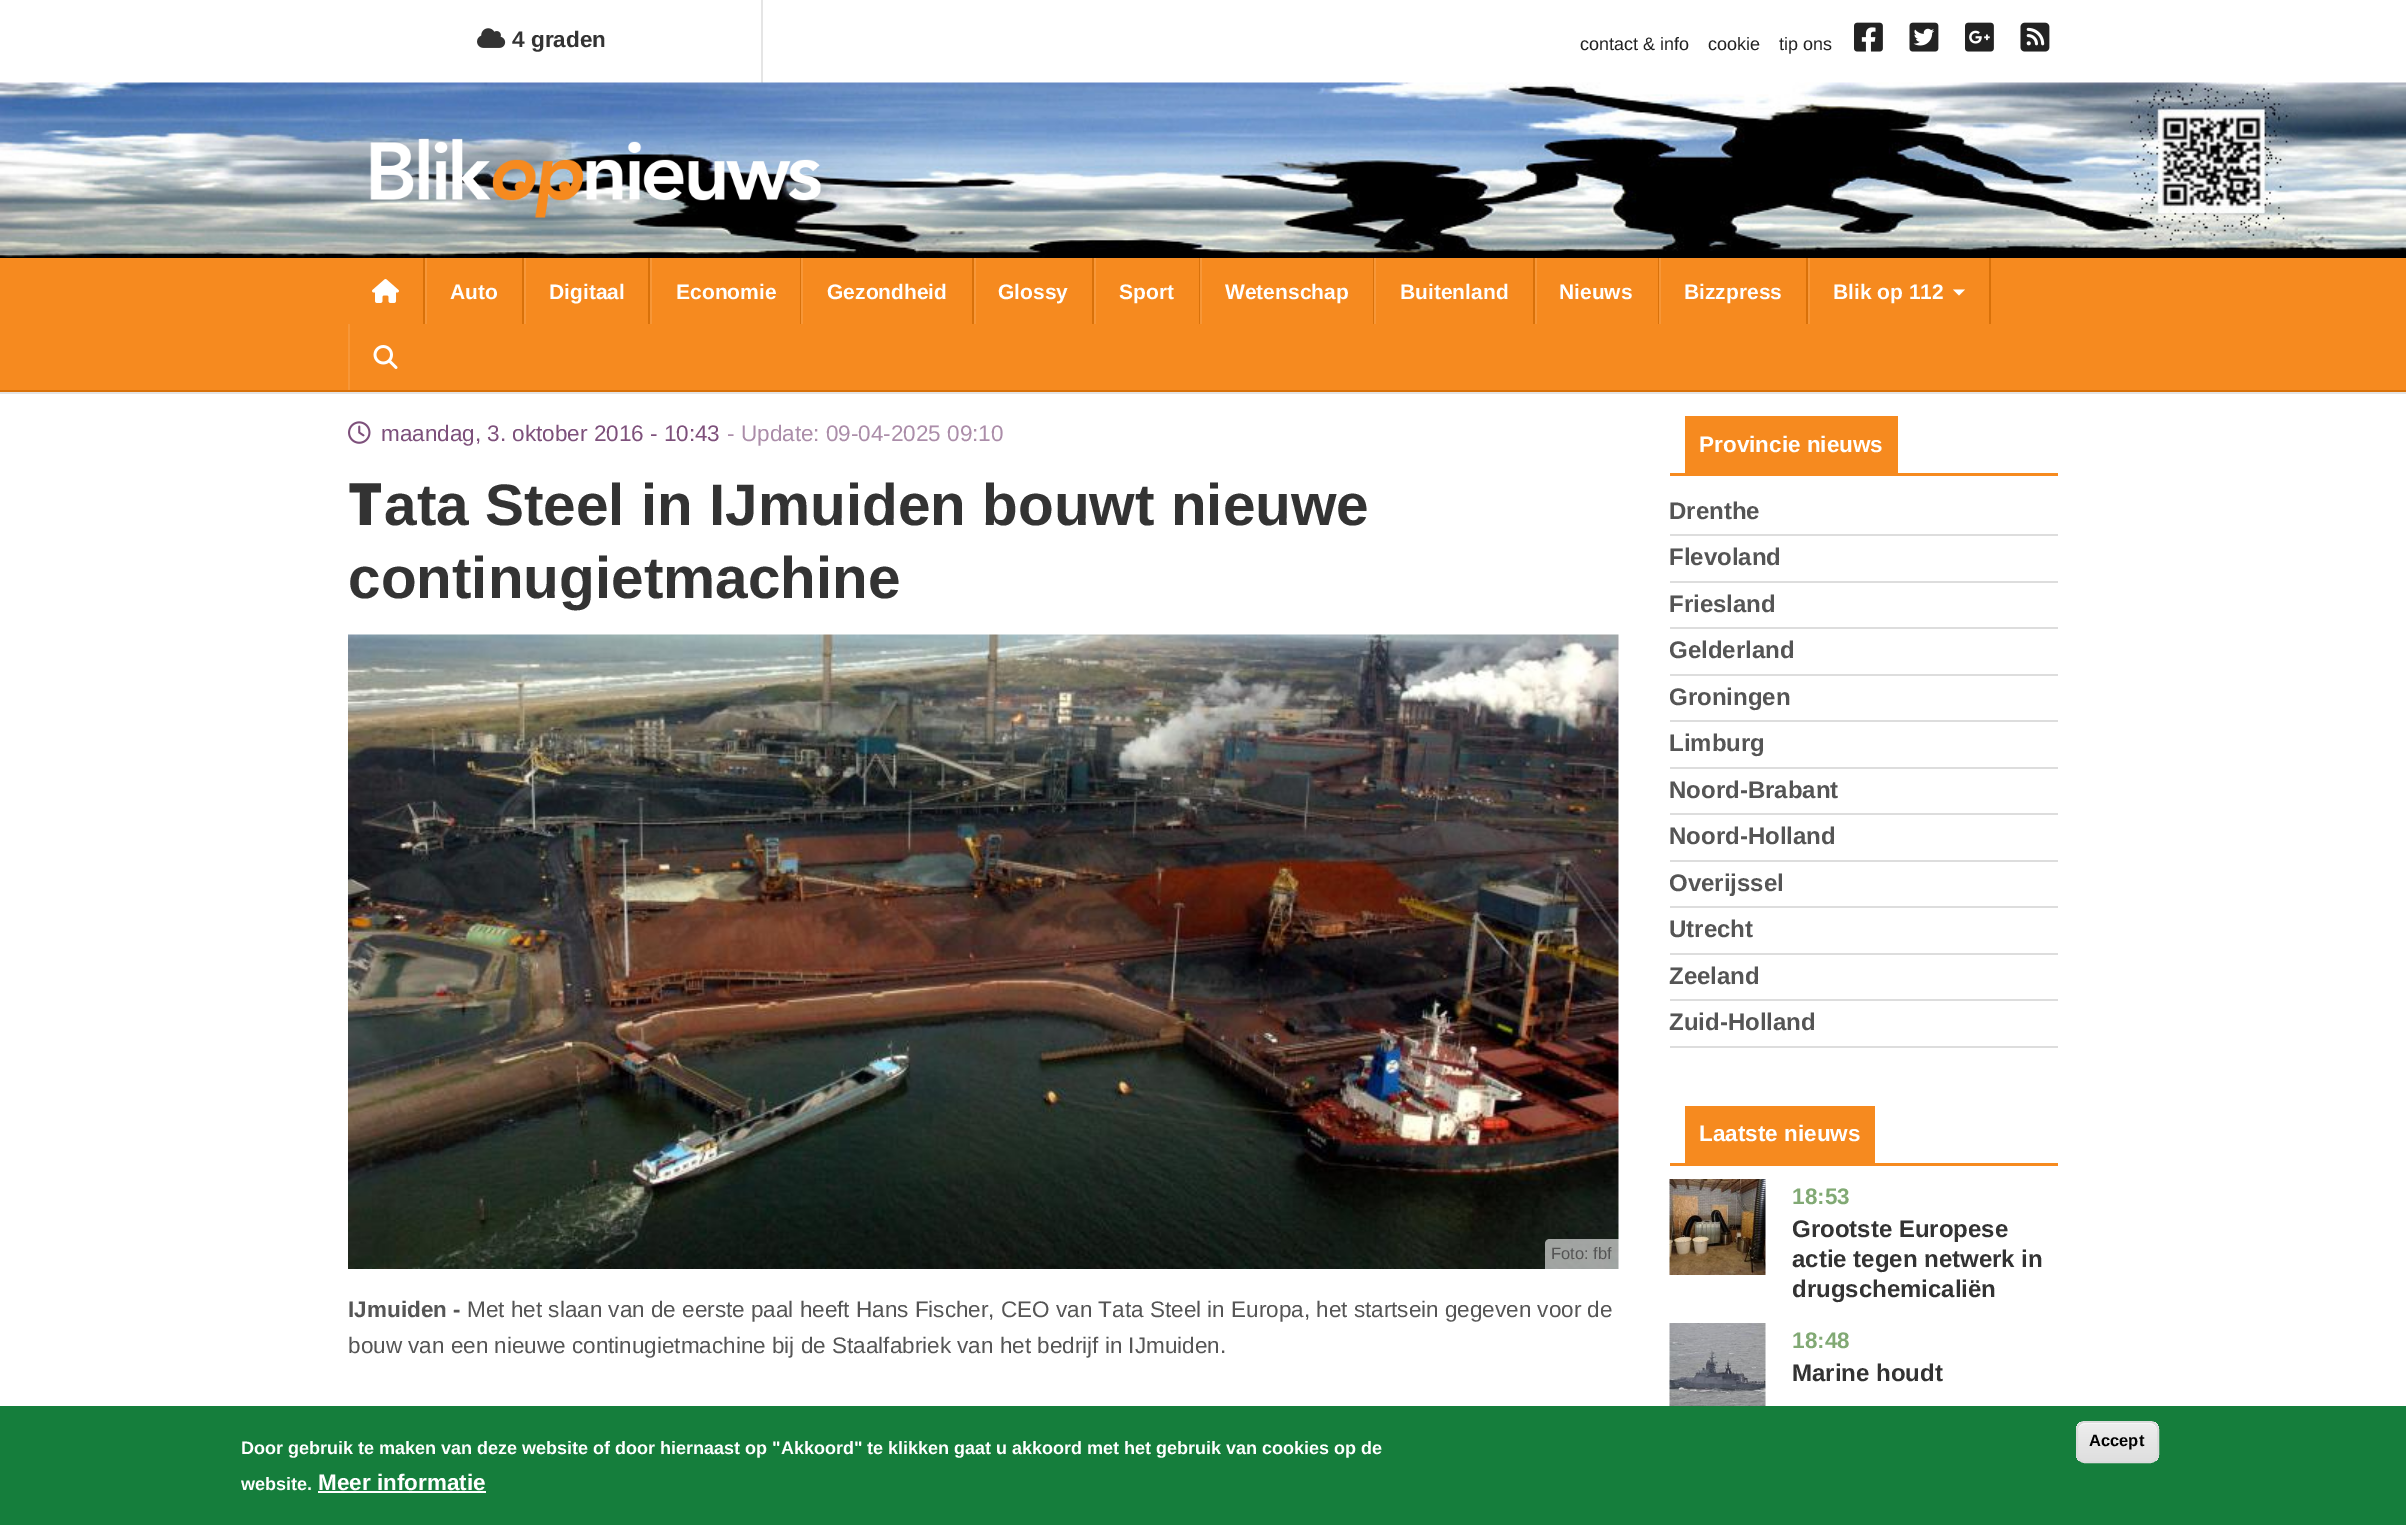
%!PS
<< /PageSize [2406 1525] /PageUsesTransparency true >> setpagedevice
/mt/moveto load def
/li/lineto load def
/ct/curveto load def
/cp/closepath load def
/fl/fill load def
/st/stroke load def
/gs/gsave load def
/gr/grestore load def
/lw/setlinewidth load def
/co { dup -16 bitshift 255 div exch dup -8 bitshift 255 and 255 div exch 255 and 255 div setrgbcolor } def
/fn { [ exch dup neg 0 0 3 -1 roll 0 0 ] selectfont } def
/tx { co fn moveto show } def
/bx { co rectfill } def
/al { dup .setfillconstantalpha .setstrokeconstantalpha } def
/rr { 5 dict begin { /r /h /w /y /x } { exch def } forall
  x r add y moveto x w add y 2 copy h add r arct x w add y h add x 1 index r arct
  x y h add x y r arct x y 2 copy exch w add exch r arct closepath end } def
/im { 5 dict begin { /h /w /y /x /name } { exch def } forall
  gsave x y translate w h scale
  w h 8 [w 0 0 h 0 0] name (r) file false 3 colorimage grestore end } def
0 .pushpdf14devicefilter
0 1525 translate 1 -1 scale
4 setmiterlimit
0 0 2406 1525 16#FFFFFF bx
761 0 2 83 16#E5E5E5 bx
(media/1.raw) 477 28 29 20 im
(media/2.raw) 1854 22 29 30 im
(media/3.raw) 1909 22 30 30 im
(media/4.raw) 1965 22 29 30 im
(media/5.raw) 2020 22 30 30 im
(media/6.raw) 0 82 2406 176 im
(media/7.raw) 370 138 451 80 im
0 258 2406 132 16#F68A1F bx
0 390 2406 2 16#D97109 bx
423 258 2 66 16#D97109 bx
(media/8.raw) 372 279 27 24 im
522 258 2 66 16#D97109 bx
425 258 2 66 16#F79738 bx
648 258 2 66 16#D97109 bx
524 258 2 66 16#F79738 bx
800 258 1 66 16#D97109 bx
650 258 2 66 16#F79738 bx
972 258 2 66 16#D97109 bx
801 258 2 66 16#F79738 bx
1092 258 2 66 16#D97109 bx
974 258 2 66 16#F79738 bx
1199 258 1 66 16#D97109 bx
1094 258 2 66 16#F79738 bx
1373 258 1 66 16#D97109 bx
1200 258 2 66 16#F79738 bx
1533 258 2 66 16#D97109 bx
1374 258 2 66 16#F79738 bx
1658 258 1 66 16#D97109 bx
1535 258 2 66 16#F79738 bx
1806 258 2 66 16#D97109 bx
1659 258 2 66 16#F79738 bx
1989 258 2 66 16#D97109 bx
1808 258 2 66 16#F79738 bx
16#FFFFFF co
1953 289.5 mt 1965 289.5 li 1959 295.5 li cp fl
348 324 2 66 16#F79738 bx
(media/9.raw) 373 345 25 24 im
0 392 2406 2 16#E4E4E4 bx
(media/10.raw) 348 421 23 23 im
(media/11.raw) 348 634 1271 635 im
0.6 al
16#FFFFFF co
1550 1239 mt 1619 1239 li 1619 1269 li 1545 1269 li 1545 1244 li 1545 1241 1547 1239 1550 1239 ct cp fl
1 al
1685 416 213 57 16#F68A1F bx
1670 473 388 3 16#F68A1F bx
1670 534 388 2 16#DDDDDD bx
1670 581 388 2 16#DDDDDD bx
1670 627 388 2 16#DDDDDD bx
1670 674 388 2 16#DDDDDD bx
1670 720 388 2 16#DDDDDD bx
1670 767 388 2 16#DDDDDD bx
1670 813 388 2 16#DDDDDD bx
1670 860 388 2 16#DDDDDD bx
1670 906 388 2 16#DDDDDD bx
1670 953 388 2 16#DDDDDD bx
1670 999 388 2 16#DDDDDD bx
1670 1046 388 2 16#DDDDDD bx
1685 1106 190 57 16#F68A1F bx
1670 1163 388 3 16#F68A1F bx
(media/12.raw) 1669 1179 97 96 im
(media/13.raw) 1669 1323 97 83 im
0 1406 2406 119 16#157E3C bx
318 1491 168 2 16#FFFFFF bx
gs
2076 1421 83 42 9 rr clip newpath
gs 2076 1422 mt 2159 1422 li 2159 1461 li 2076 1461 li cp clip newpath
<< /ShadingType 2 /ColorSpace /DeviceRGB /Coords [2117 1422 2117 1461] /Extend [true true] /Function << /FunctionType 3 /Domain [0 1] /Functions [<< /FunctionType 2 /Domain [0 1] /C0 [.929 .929 .929] /C1 [.929 .929 .929] /N 1 >> << /FunctionType 2 /Domain [0 1] /C0 [.929 .929 .929] /C1 [.875 .875 .875] /N 1 >>] /Bounds [.05] /Encode [0 1 0 1] >> >> shfill gr
gr
2085 1424 mt 2150 1424 li 2154 1424 2157 1427 2157 1431 ct 2157 1420 2146 1422 2138 1422 ct 2096 1422 li 2089 1422 2078 1420 2078 1431 ct 2078 1427 2081 1424 2085 1424 ct cp fl
16#DCDCDC co
2 lw
2077 1422 81 40 8 rr st
(4 graden) 512 47 /LiberationSans-Bold 22.5 16#333333 tx
(contact & info) 1580 50 /LiberationSans-Regular 18 16#222222 tx
(cookie) 1708 50 /LiberationSans-Regular 18 16#222222 tx
(tip ons) 1779 50 /LiberationSans-Regular 18 16#222222 tx
(Auto) 450 299 /LiberationSans-Bold 21 16#FFFFFF tx
(Digitaal) 549 299 /LiberationSans-Bold 21 16#FFFFFF tx
(Economie) 676 299 /LiberationSans-Bold 21 16#FFFFFF tx
(Gezondheid) 827 299 /LiberationSans-Bold 21 16#FFFFFF tx
(Glossy) 998 299 /LiberationSans-Bold 21 16#FFFFFF tx
(Sport) 1119 299 /LiberationSans-Bold 21 16#FFFFFF tx
(Wetenschap) 1225 299 /LiberationSans-Bold 21 16#FFFFFF tx
(Buitenland) 1400 299 /LiberationSans-Bold 21 16#FFFFFF tx
(Nieuws) 1559 299 /LiberationSans-Bold 21 16#FFFFFF tx
(Bizzpress) 1684 299 /LiberationSans-Bold 21 16#FFFFFF tx
(Blik op 112) 1833 299 /LiberationSans-Bold 21 16#FFFFFF tx
(maandag, 3. oktober 2016 - 10:43) 381 441 /LiberationSans-Regular 22.5 16#7D507B tx
(- Update: 09-04-2025 09:10) 727 441 /LiberationSans-Regular 22.5 16#AB8DA9 tx
(T) 348 525 /NotoSans-Black 58.5 16#333333 tx
(ata Steel in IJmuiden bouwt nieuwe) 384 525 /LiberationSans-Bold 58.5 16#333333 tx
(continugietmachine) 348 598 /LiberationSans-Bold 58.5 16#333333 tx
(Foto: fbf) 1551 1259 /LiberationSans-Regular 16.5 16#555555 tx
(IJmuiden -) 348 1317 /LiberationSans-Bold 22.5 16#555555 tx
(Met het slaan van de eerste paal heeft Hans Fischer, CEO van Tata Steel in Europa, het startsein gegeven voor de) 467 1317 /LiberationSans-Regular 22.5 16#555555 tx
(bouw van een nieuwe continugietmachine bij de Staalfabriek van het bedrijf in IJmuiden.) 348 1353 /LiberationSans-Regular 22.5 16#555555 tx
(Provincie nieuws) 1699 452 /LiberationSans-Bold 22.5 16#FFFFFF tx
(Drenthe) 1669 519 /LiberationSans-Bold 24 16#555555 tx
(Flevoland) 1669 565 /LiberationSans-Bold 24 16#555555 tx
(Friesland) 1669 612 /LiberationSans-Bold 24 16#555555 tx
(Gelderland) 1669 658 /LiberationSans-Bold 24 16#555555 tx
(Groningen) 1669 705 /LiberationSans-Bold 24 16#555555 tx
(Limburg) 1669 751 /LiberationSans-Bold 24 16#555555 tx
(Noord-Brabant) 1669 798 /LiberationSans-Bold 24 16#555555 tx
(Noord-Holland) 1669 844 /LiberationSans-Bold 24 16#555555 tx
(Overijssel) 1669 891 /LiberationSans-Bold 24 16#555555 tx
(Utrecht) 1669 937 /LiberationSans-Bold 24 16#555555 tx
(Zeeland) 1669 984 /LiberationSans-Bold 24 16#555555 tx
(Zuid-Holland) 1669 1030 /LiberationSans-Bold 24 16#555555 tx
(Laatste nieuws) 1699 1141 /LiberationSans-Bold 22.5 16#FFFFFF tx
(18:53) 1792 1204 /LiberationSans-Bold 22.5 16#81A974 tx
(Grootste Europese) 1792 1237 /LiberationSans-Bold 24 16#333333 tx
(actie tegen netwerk in) 1792 1267 /LiberationSans-Bold 24 16#333333 tx
(drugschemicaliën) 1792 1297 /LiberationSans-Bold 24 16#333333 tx
(18:48) 1792 1348 /LiberationSans-Bold 22.5 16#81A974 tx
(Marine houdt) 1792 1381 /LiberationSans-Bold 24 16#333333 tx
(Door gebruik te maken van deze website of door hiernaast op "Akkoord" te klikken gaat u akkoord met het gebruik van cookies op de) 241 1454 /LiberationSans-Bold 18 16#FFFFFF tx
(website.) 241 1490 /LiberationSans-Bold 18 16#FFFFFF tx
(Meer informatie) 318 1490 /LiberationSans-Bold 22.5 16#FFFFFF tx
(Accept) 2089 1446 /LiberationSans-Bold 16.5 16#000000 tx
.poppdf14devicefilter showpage
